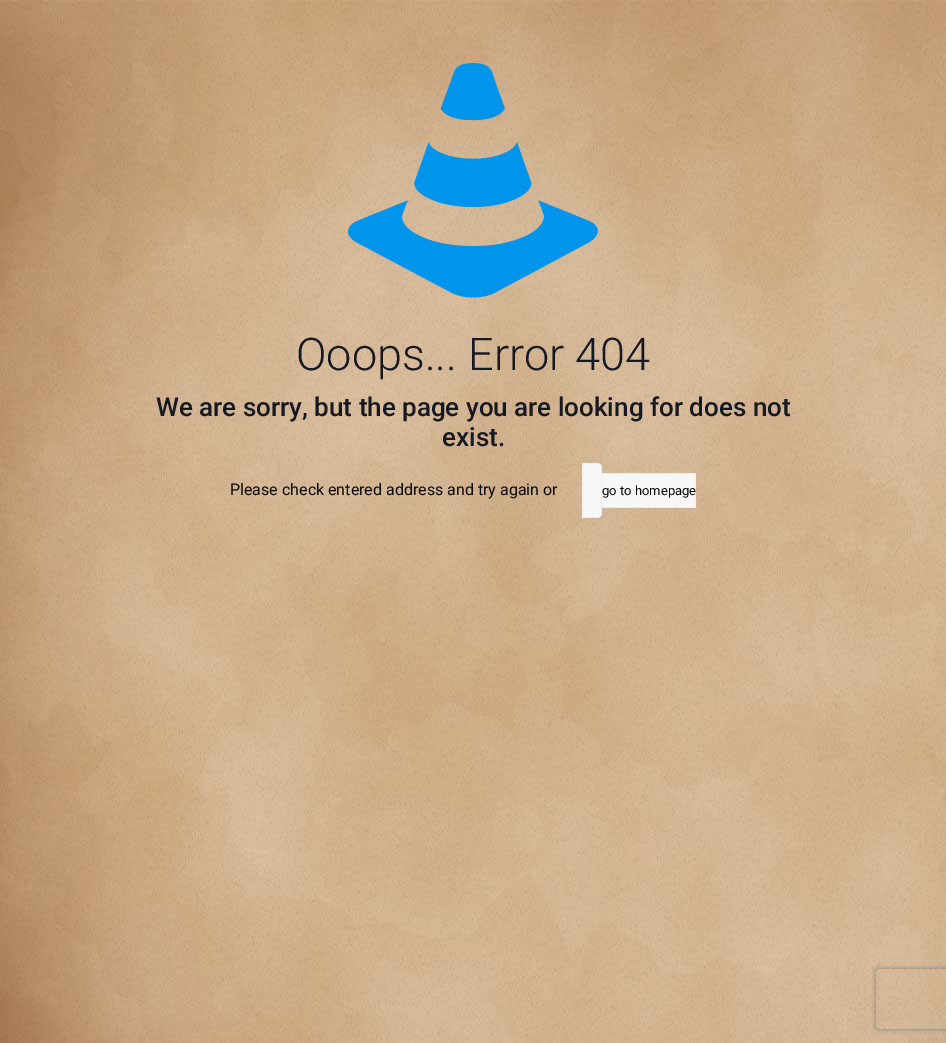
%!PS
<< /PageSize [946 1043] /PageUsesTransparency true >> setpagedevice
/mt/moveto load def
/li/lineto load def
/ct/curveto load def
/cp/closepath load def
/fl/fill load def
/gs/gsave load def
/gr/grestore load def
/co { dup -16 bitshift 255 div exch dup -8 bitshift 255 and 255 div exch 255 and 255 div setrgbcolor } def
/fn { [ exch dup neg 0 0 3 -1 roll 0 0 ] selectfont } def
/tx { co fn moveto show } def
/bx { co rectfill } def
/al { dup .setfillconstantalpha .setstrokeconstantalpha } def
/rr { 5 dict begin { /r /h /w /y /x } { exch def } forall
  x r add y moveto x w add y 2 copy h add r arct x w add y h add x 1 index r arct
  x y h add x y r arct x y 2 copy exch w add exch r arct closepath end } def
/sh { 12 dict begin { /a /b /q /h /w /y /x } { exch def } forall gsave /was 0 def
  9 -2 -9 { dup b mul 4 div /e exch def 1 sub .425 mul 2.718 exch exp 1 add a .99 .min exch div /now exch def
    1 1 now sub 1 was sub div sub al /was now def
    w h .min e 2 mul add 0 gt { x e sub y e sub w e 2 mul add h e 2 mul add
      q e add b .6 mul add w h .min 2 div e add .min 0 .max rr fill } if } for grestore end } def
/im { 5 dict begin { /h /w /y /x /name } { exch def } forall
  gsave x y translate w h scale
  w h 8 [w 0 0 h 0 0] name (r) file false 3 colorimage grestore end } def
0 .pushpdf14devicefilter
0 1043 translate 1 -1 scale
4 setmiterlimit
0 0 946 1043 16#FFFFFF bx
(media/1.raw) 0 0 946 1043 im
(media/2.raw) 348 63 250 235 im
602 473 94 35 16#F7F7F7 bx
0.03 al
16#000000 co
582.5 473.5 113 34 rectstroke
1 al
16#F7F7F7 co
582 463 mt 597 463 li 600 463 602 465 602 468 ct 602 513 li 602 516 600 518 597 518 ct 582 518 li cp fl
0.03 al
16#000000 co
582.5 463.5 19 54 rectstroke
gs
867 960 mt 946 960 li 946 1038 li 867 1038 li cp 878 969 mt 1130 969 li 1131 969 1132 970 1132 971 ct 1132 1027 li 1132 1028 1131 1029 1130 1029 ct 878 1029 li 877 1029 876 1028 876 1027 ct 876 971 li 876 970 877 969 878 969 ct cp eoclip newpath
1 al
16#808080 co
876 969 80 60 2 2.5 1 sh
gr
1 al
(Ooops... Error 404) 296 370 /Roboto-Light 45 16#161922 tx
(We are sorry, but the page you are looking for does not) 156 416 /Roboto-Medium 26 16#161922 tx
(exist.) 442 446 /Roboto-Medium 26 16#161922 tx
(Please check entered address and try again or) 230 495 /Roboto-Regular 16 16#0A0A0A tx
(go to homepage) 602 495 /Roboto-Regular 13 16#0A0A0A tx
.poppdf14devicefilter showpage
